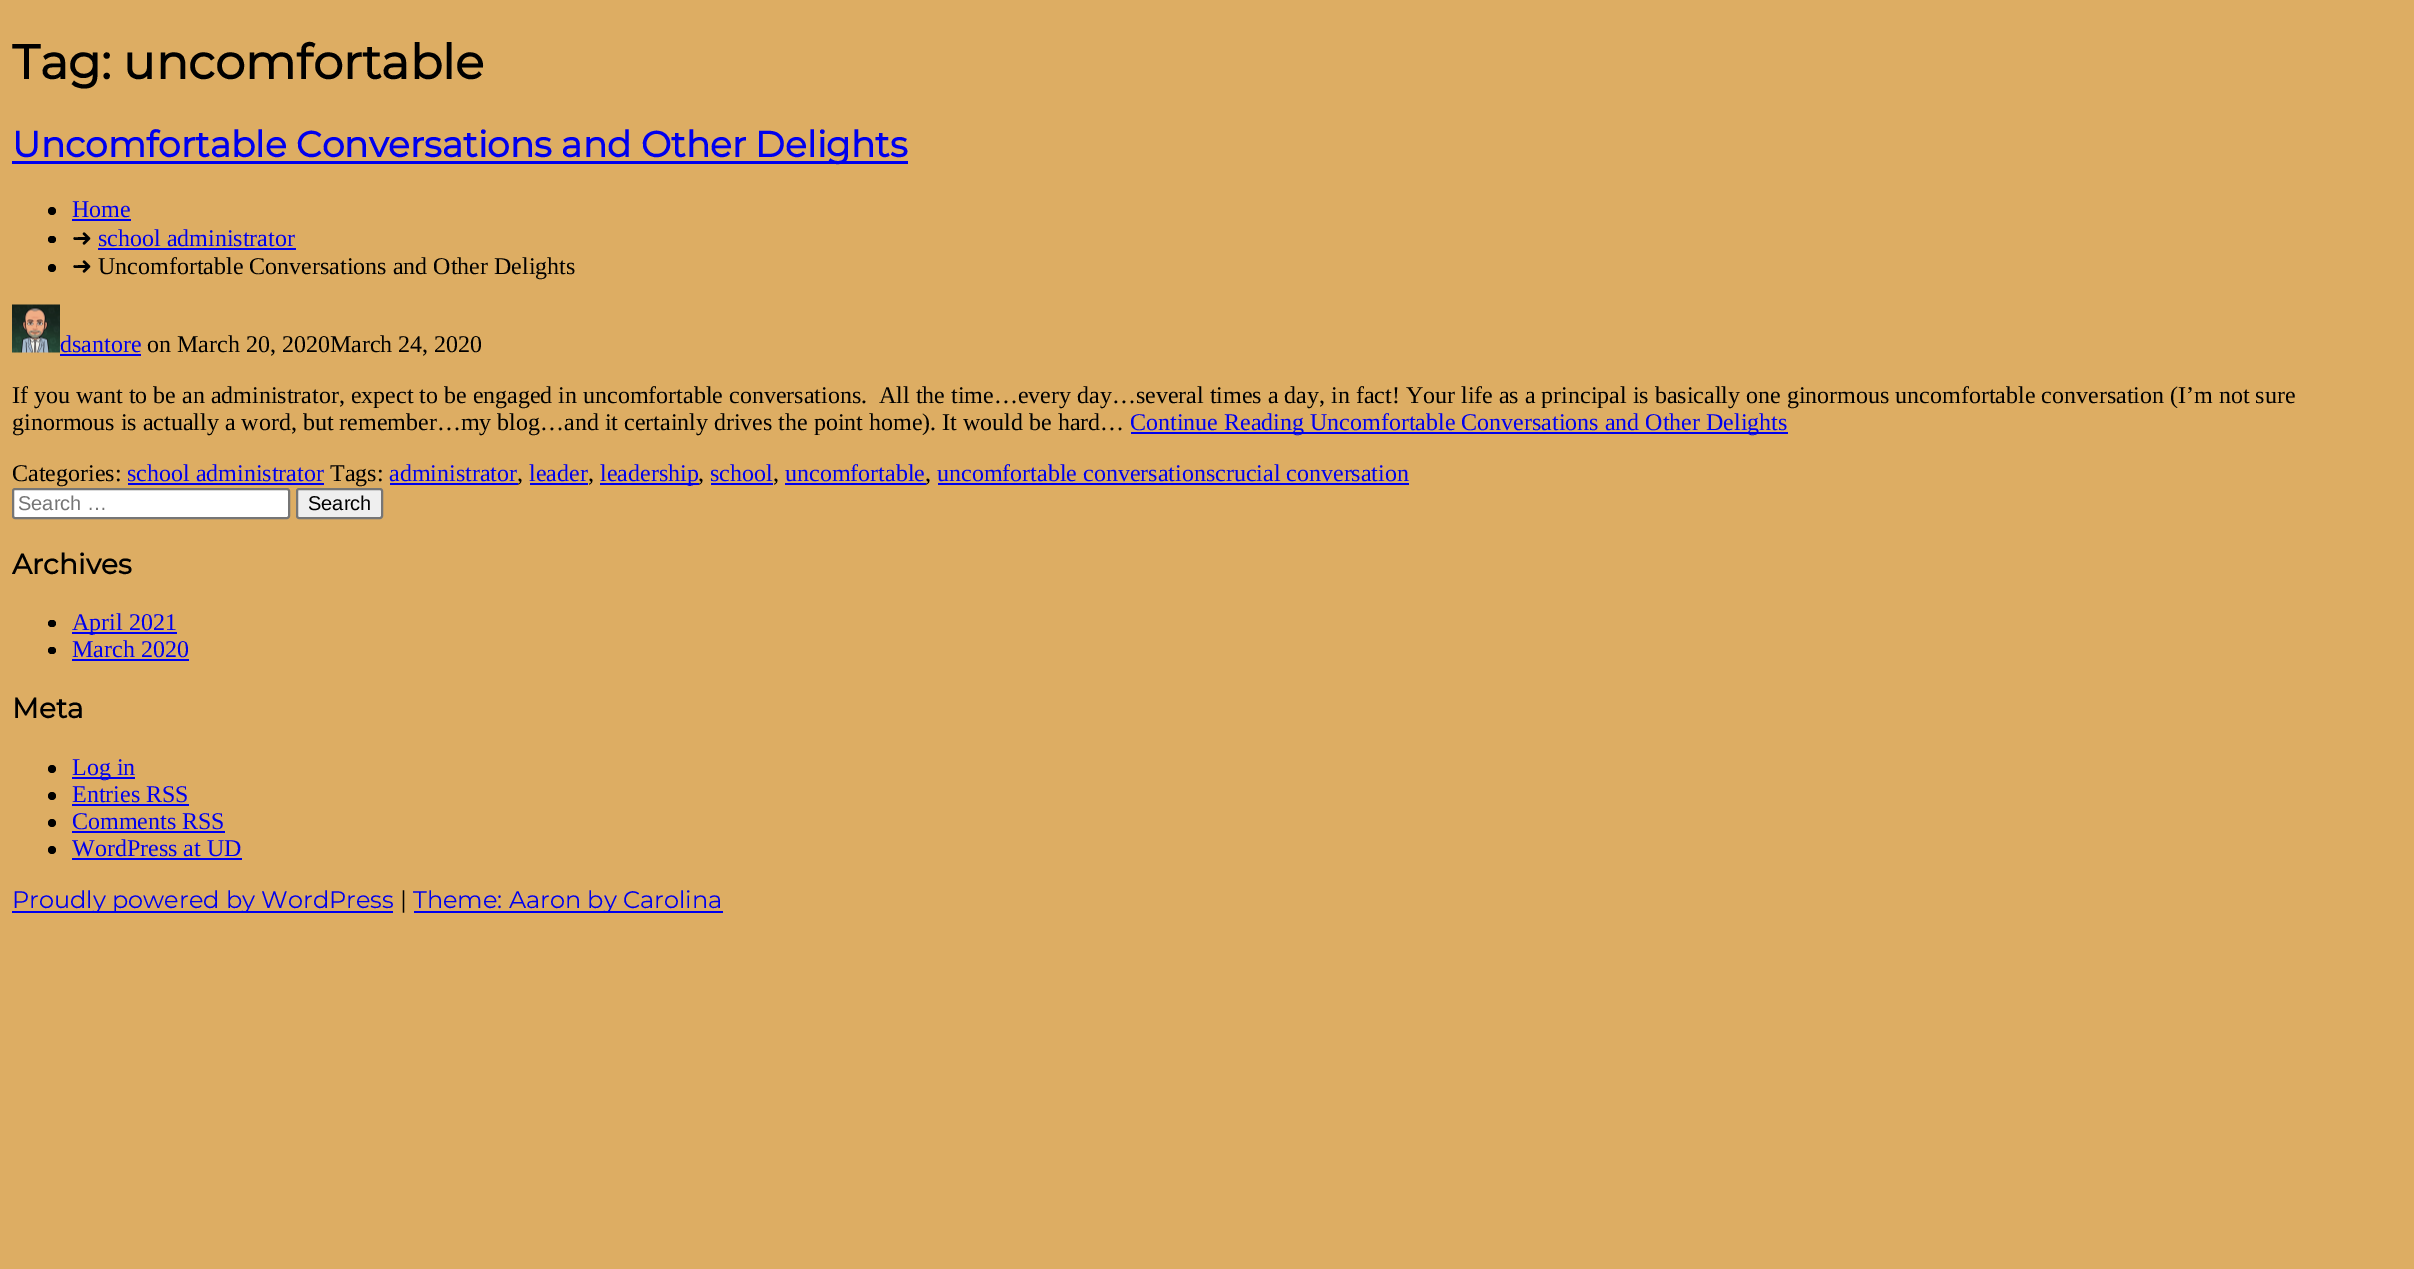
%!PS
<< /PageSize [2414 1269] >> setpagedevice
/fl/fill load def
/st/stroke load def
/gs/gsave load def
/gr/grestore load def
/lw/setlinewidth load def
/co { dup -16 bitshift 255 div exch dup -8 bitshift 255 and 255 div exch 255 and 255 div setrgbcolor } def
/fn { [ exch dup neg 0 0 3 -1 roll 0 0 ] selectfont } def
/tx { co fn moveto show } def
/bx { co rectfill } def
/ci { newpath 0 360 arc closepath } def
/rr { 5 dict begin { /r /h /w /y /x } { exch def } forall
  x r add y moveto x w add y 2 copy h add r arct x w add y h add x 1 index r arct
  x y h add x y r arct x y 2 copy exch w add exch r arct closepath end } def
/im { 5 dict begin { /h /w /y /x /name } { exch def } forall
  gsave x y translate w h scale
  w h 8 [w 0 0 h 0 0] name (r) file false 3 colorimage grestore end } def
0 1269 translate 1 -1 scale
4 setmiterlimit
0 0 2414 1269 16#DDAD63 bx
12 161 896 3 16#0000EE bx
16#000000 co
52 211 4 ci fl
72 219 59 2 16#0000EE bx
16#000000 co
48 236 8 7 3.5 rr fl
98 248 198 2 16#0000EE bx
16#000000 co
52 268 4 ci fl
(media/1.raw) 12 304 48 49 im
60 354 81 2 16#0000EE bx
1131 432 657 2 16#0000EE bx
128 483 196 2 16#0000EE bx
390 483 128 2 16#0000EE bx
530 483 58 2 16#0000EE bx
600 483 99 2 16#0000EE bx
711 483 62 2 16#0000EE bx
785 483 141 2 16#0000EE bx
938 483 471 2 16#0000EE bx
16#FFFFFF co
13 489 276 29 2 rr gs fl gr
16#767676 co
2 lw
st
16#EFEFEF co
297 489 85 29 2 rr gs fl gr
16#767676 co
st
16#000000 co
48 620 8 7 3.5 rr fl
72 632 105 2 16#0000EE bx
16#000000 co
48 647 8 7 3.5 rr fl
72 659 117 2 16#0000EE bx
16#000000 co
52 769 4 ci fl
72 777 63 2 16#0000EE bx
16#000000 co
52 796 4 ci fl
72 804 117 2 16#0000EE bx
16#000000 co
52 823 4 ci fl
72 831 153 2 16#0000EE bx
16#000000 co
52 850 4 ci fl
72 858 170 2 16#0000EE bx
12 911 381 2 16#0000EE bx
414 911 309 2 16#0000EE bx
(Tag: uncomfortable) 12 79 /Montserrat-Bold 48 16#000000 tx
(Uncomfortable Conversations and Other Delights) 12 157 /Montserrat-Bold 36 16#0000EE tx
(Home) 72 217 /LiberationSerif-Regular 24 16#0000EE tx
(➜) 72 246 /DejaVuSans-Regular 24 16#000000 tx
(school administrator) 98 246 /LiberationSerif-Regular 24 16#0000EE tx
(➜) 72 274 /DejaVuSans-Regular 24 16#000000 tx
(Uncomfortable Conversations and Other Delights) 98 274 /LiberationSerif-Regular 24 16#000000 tx
(dsantore) 60 352 /LiberationSerif-Regular 24 16#0000EE tx
(on March 20, 2020March 24, 2020) 147 352 /LiberationSerif-Regular 24 16#000000 tx
(If you want to be an administrator, expect to be engaged in uncomfortable conversations.  All the time…every day…several times a day, in fact! Your life as a principal is basically one ginormous uncomfortable conversation \(I’m not sure) 12 403 /LiberationSerif-Regular 24 16#000000 tx
(ginormous is actually a word, but remember…my blog…and it certainly drives the point home\). It would be hard…) 12 430 /LiberationSerif-Regular 24 16#000000 tx
(Continue Reading Uncomfortable Conversations and Other Delights) 1130 430 /LiberationSerif-Regular 24 16#0000EE tx
(Categories:) 12 481 /LiberationSerif-Regular 24 16#000000 tx
(school administrator) 127 481 /LiberationSerif-Regular 24 16#0000EE tx
(Tags:) 330 481 /LiberationSerif-Regular 24 16#000000 tx
(administrator) 389 481 /LiberationSerif-Regular 24 16#0000EE tx
(,) 517 481 /LiberationSerif-Regular 24 16#000000 tx
(leader) 529 481 /LiberationSerif-Regular 24 16#0000EE tx
(,) 588 481 /LiberationSerif-Regular 24 16#000000 tx
(leadership) 600 481 /LiberationSerif-Regular 24 16#0000EE tx
(,) 698 481 /LiberationSerif-Regular 24 16#000000 tx
(school) 710 481 /LiberationSerif-Regular 24 16#0000EE tx
(,) 773 481 /LiberationSerif-Regular 24 16#000000 tx
(uncomfortable) 785 481 /LiberationSerif-Regular 24 16#0000EE tx
(,) 925 481 /LiberationSerif-Regular 24 16#000000 tx
(uncomfortable conversationscrucial conversation) 937 481 /LiberationSerif-Regular 24 16#0000EE tx
(Search …) 18 510 /LiberationSans-Regular 20 16#757575 tx
(Search) 308 510 /LiberationSans-Regular 20 16#000000 tx
(Archives) 12 574 /Montserrat-Bold 28 16#000000 tx
(April 2021) 72 630 /LiberationSerif-Regular 24 16#0000EE tx
(March 2020) 72 657 /LiberationSerif-Regular 24 16#0000EE tx
(Meta) 12 718 /Montserrat-Bold 28 16#000000 tx
(Log in) 72 775 /LiberationSerif-Regular 24 16#0000EE tx
(Entries RSS) 72 802 /LiberationSerif-Regular 24 16#0000EE tx
(Comments RSS) 72 829 /LiberationSerif-Regular 24 16#0000EE tx
(WordPress at UD) 72 856 /LiberationSerif-Regular 24 16#0000EE tx
(Proudly powered by WordPress) 12 908 /Montserrat-Thin 24 16#0000EE tx
(|) 400 908 /Montserrat-Thin 24 16#000000 tx
(Theme: Aaron by Carolina) 413 908 /Montserrat-Thin 24 16#0000EE tx
showpage
